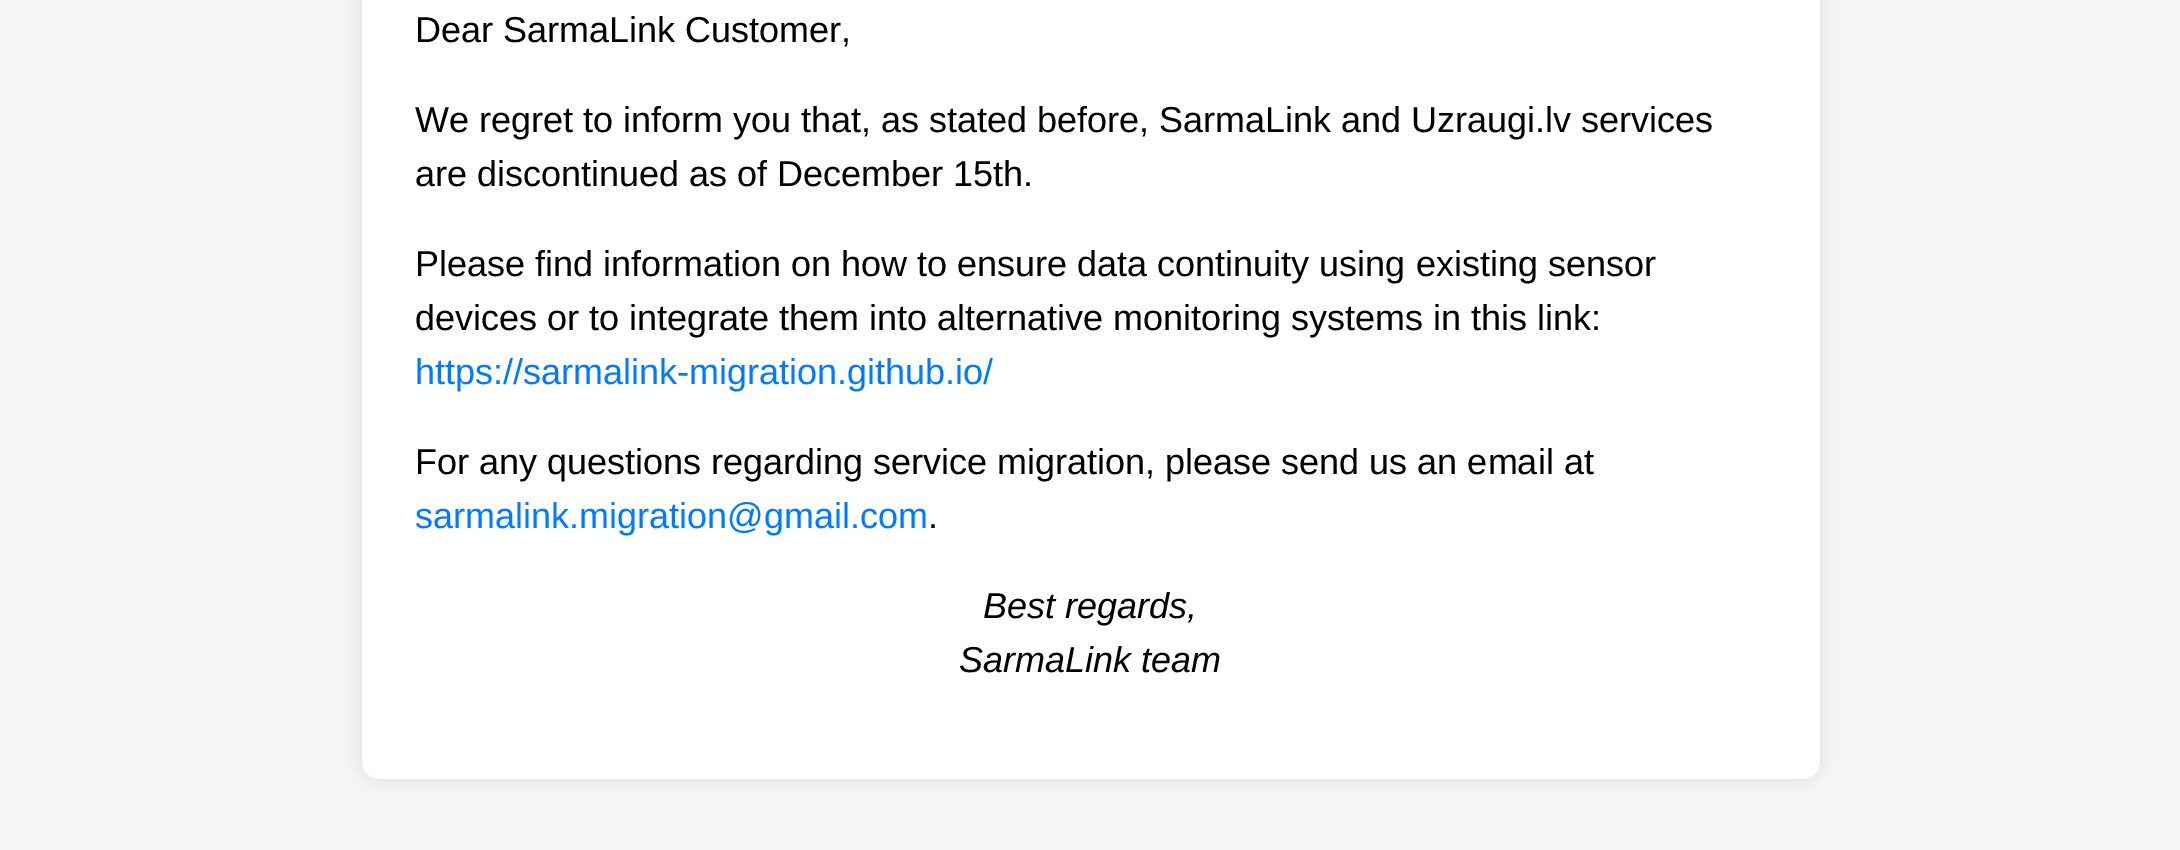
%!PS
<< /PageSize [2180 850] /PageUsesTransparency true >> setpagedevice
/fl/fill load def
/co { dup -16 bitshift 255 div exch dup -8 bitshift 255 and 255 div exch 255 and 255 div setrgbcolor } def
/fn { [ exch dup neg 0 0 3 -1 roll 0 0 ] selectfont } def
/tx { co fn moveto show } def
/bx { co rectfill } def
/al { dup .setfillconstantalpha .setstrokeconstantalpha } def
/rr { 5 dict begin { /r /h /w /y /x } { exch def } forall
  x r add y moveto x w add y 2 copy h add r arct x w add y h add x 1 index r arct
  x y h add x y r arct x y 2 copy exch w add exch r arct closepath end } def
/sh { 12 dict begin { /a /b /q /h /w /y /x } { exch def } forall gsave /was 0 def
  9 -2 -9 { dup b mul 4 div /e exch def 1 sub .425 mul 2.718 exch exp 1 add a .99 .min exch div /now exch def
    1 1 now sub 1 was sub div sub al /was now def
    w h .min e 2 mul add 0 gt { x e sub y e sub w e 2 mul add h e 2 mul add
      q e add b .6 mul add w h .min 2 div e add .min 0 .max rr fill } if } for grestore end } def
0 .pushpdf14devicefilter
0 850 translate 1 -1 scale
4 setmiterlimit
0 0 2180 850 16#F6F6F6 bx
16#000000 co
362 -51 1458 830 18 11 .1 sh
16#FFFFFF co
362 -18 1458 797 18 rr fl
(Dear SarmaLink Customer,) 415 42 /LiberationSans-Regular 36 16#000000 tx
(We regret to inform you that, as stated before, SarmaLink and Uzraugi.lv services) 415 132 /LiberationSans-Regular 36 16#000000 tx
(are discontinued as of December 15th.) 415 186 /LiberationSans-Regular 36 16#000000 tx
(Please find information on how to ensure data continuity using existing sensor) 415 276 /LiberationSans-Regular 36 16#000000 tx
(devices or to integrate them into alternative monitoring systems in this link:) 415 330 /LiberationSans-Regular 36 16#000000 tx
(https://sarmalink-migration.github.io/) 415 384 /LiberationSans-Regular 36 16#007BFF tx
(For any questions regarding service migration, please send us an email at) 415 474 /LiberationSans-Regular 36 16#000000 tx
(sarmalink.migration@gmail.com) 415 528 /LiberationSans-Regular 36 16#007BFF tx
(.) 928 528 /LiberationSans-Regular 36 16#000000 tx
(Best regards,) 983 618 /LiberationSans-Italic 36 16#000000 tx
(SarmaLink team) 959 672 /LiberationSans-Italic 36 16#000000 tx
.poppdf14devicefilter showpage
